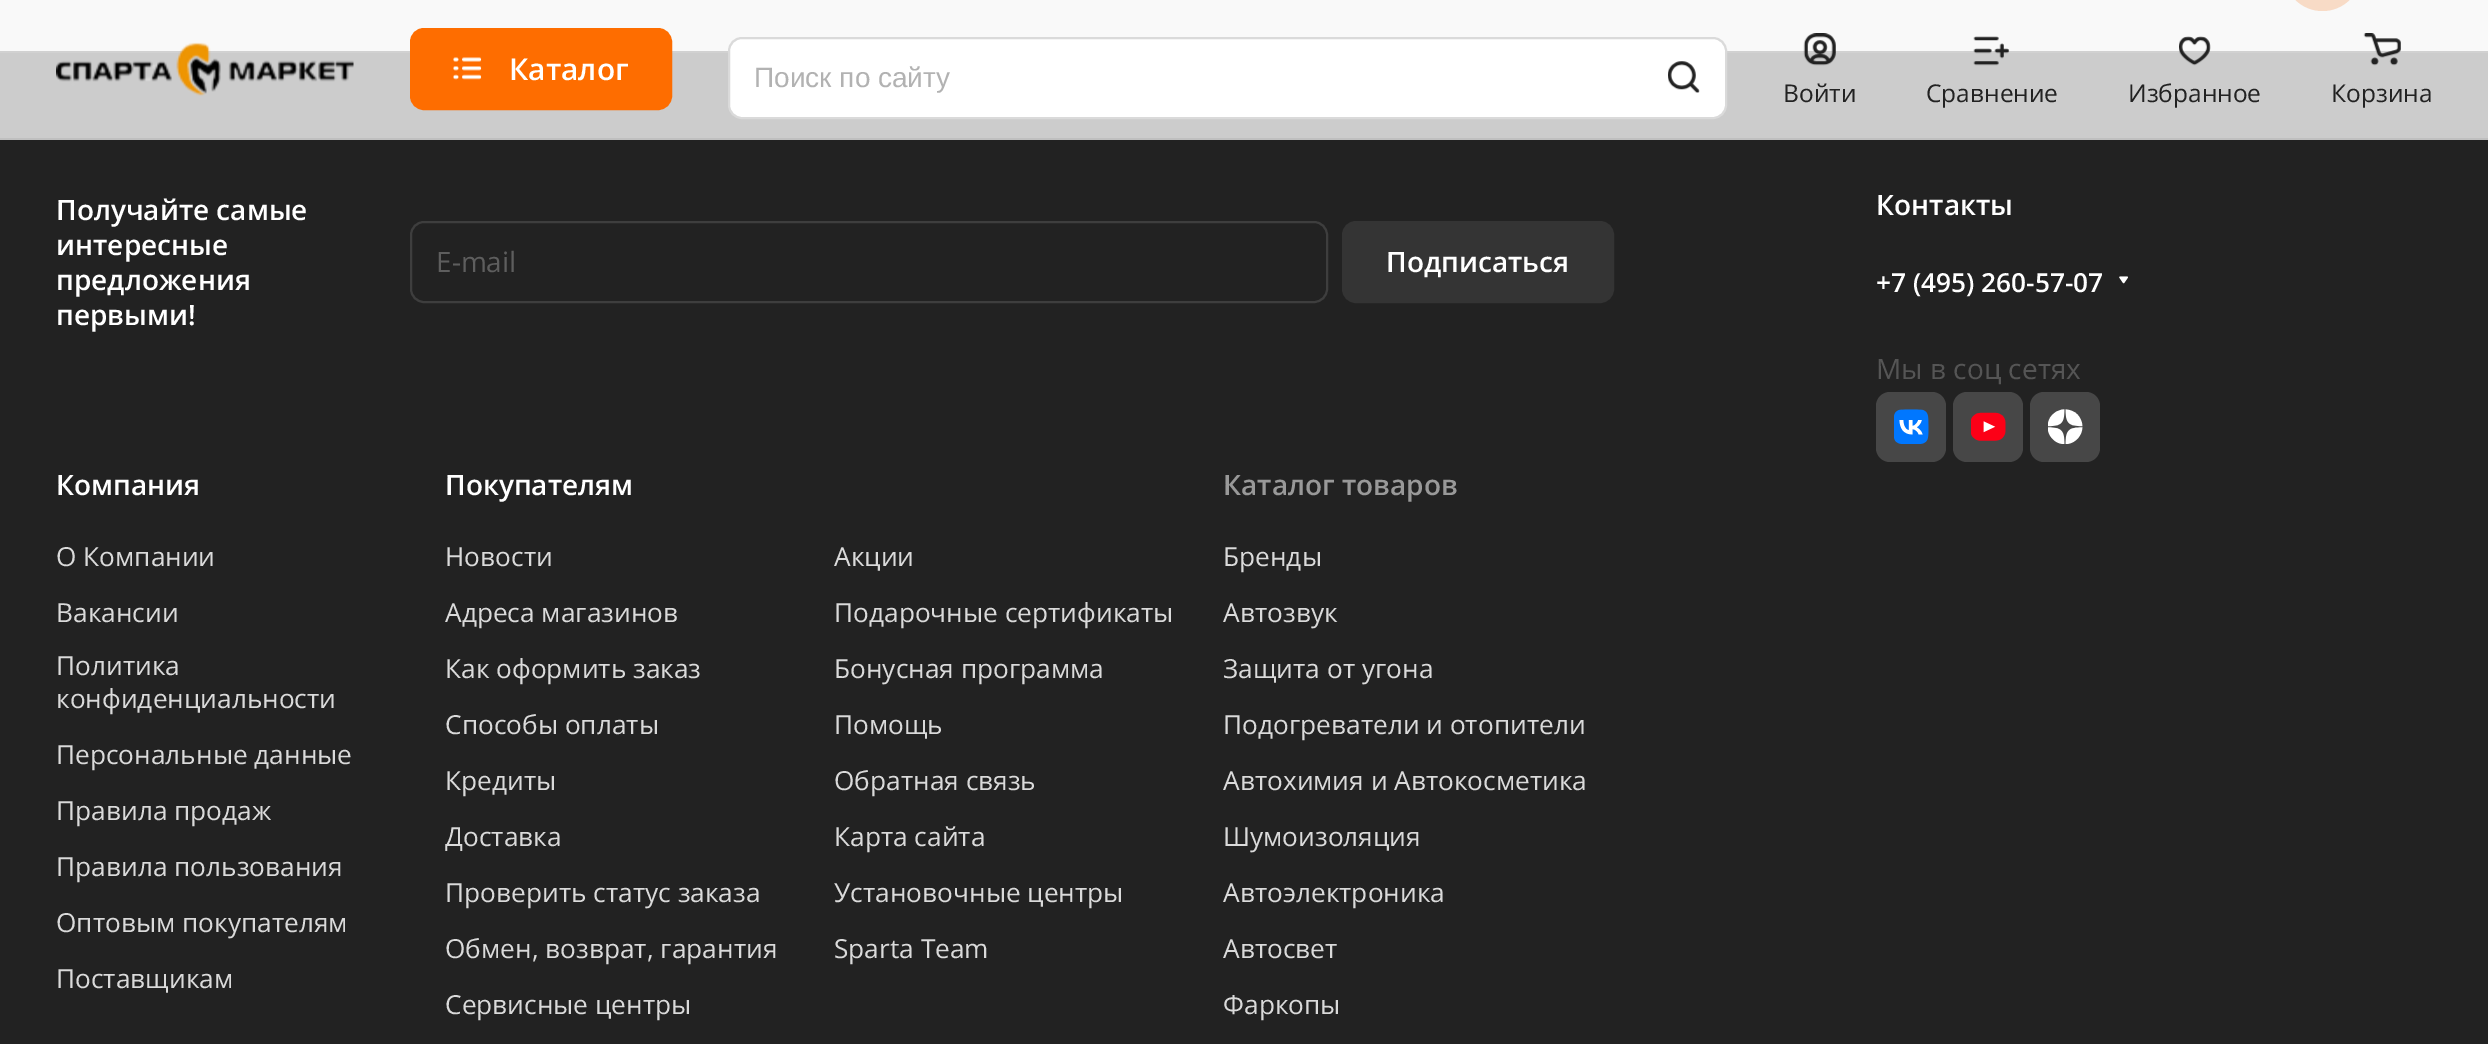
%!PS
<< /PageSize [2488 1044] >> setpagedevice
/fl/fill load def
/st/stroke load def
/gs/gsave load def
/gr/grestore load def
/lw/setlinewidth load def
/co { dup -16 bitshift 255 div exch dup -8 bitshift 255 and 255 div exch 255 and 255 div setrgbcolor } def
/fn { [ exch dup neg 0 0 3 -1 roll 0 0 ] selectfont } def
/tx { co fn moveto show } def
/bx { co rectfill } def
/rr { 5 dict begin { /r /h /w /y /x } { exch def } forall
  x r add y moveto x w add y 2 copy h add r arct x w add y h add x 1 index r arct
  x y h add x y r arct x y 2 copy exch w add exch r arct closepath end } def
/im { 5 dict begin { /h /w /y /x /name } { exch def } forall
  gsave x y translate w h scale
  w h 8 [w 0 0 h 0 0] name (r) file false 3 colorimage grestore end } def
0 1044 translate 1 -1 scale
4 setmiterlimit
0 0 2488 1044 16#F9F9F9 bx
16#F8DBC6 co
2284 -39 77 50 38.5 rr fl
0 138 2488 2 16#BFBFBF bx
0 53 2488 85 16#CCCCCC bx
0 51 2488 2 16#D1D1D1 bx
(media/1.raw) 56 42 298 54 im
16#FE6D00 co
411 29 260 80 13 rr gs fl gr
2 lw
st
(media/2.raw) 453 57 29 23 im
16#FFFFFF co
729 38 997 80 13 rr gs fl gr
16#DADADA co
st
(media/3.raw) 1668 61 32 32 im
(media/4.raw) 1803 33 33 33 im
(media/5.raw) 1973 36 37 30 im
(media/6.raw) 2179 36 32 30 im
(media/7.raw) 2363 33 38 33 im
0 140 2488 904 16#222222 bx
16#3E3E3E co
411 222 916 80 13 rr st
16#343434 co
1343 222 270 80 13 rr gs fl gr
st
(media/8.raw) 2119 276 9 8 im
16#474747 co
1876 392 70 70 14 rr fl
(media/9.raw) 1894 409 35 35 im
1953 392 70 70 14 rr fl
(media/10.raw) 1971 412 35 29 im
2030 392 70 70 14 rr fl
(media/11.raw) 2048 409 35 35 im
(Каталог) 509 80 /OpenSans-SemiBold 30 16#FFFFFF tx
(Поиск по сайту) 754 87 /LiberationSans-Regular 28 16#B2B2B2 tx
(Войти) 1783 102 /OpenSans-Regular 24.5 16#222222 tx
(Сравнение) 1926 102 /OpenSans-Regular 24.5 16#222222 tx
(Избранное) 2128 102 /OpenSans-Regular 24.5 16#222222 tx
(Корзина) 2331 102 /OpenSans-Regular 24.5 16#222222 tx
(Получайте самые) 56 220 /OpenSans-SemiBold 28 16#FFFFFF tx
(интересные) 56 255 /OpenSans-SemiBold 28 16#FFFFFF tx
(предложения) 56 290 /OpenSans-SemiBold 28 16#FFFFFF tx
(первыми!) 56 325 /OpenSans-SemiBold 28 16#FFFFFF tx
(E-mail) 436 272 /OpenSans-Regular 28 16#5E5E5E tx
(Подписаться) 1386 272 /OpenSans-SemiBold 28 16#FFFFFF tx
(Компания) 56 495 /OpenSans-SemiBold 28 16#FFFFFF tx
(О Компании) 56 566 /OpenSans-Regular 26.25 16#DADADA tx
(Вакансии) 56 622 /OpenSans-Regular 26.25 16#DADADA tx
(Политика) 56 675 /OpenSans-Regular 26.25 16#DADADA tx
(конфиденциальности) 56 708 /OpenSans-Regular 26.25 16#DADADA tx
(Персональные данные) 56 764 /OpenSans-Regular 26.25 16#DADADA tx
(Правила продаж) 56 820 /OpenSans-Regular 26.25 16#DADADA tx
(Правила пользования) 56 876 /OpenSans-Regular 26.25 16#DADADA tx
(Оптовым покупателям) 56 932 /OpenSans-Regular 26.25 16#DADADA tx
(Поставщикам) 56 988 /OpenSans-Regular 26.25 16#DADADA tx
(Покупателям) 445 495 /OpenSans-SemiBold 28 16#FFFFFF tx
(Новости) 445 566 /OpenSans-Regular 26.25 16#DADADA tx
(Адреса магазинов) 445 622 /OpenSans-Regular 26.25 16#DADADA tx
(Как оформить заказ) 445 678 /OpenSans-Regular 26.25 16#DADADA tx
(Способы оплаты) 445 734 /OpenSans-Regular 26.25 16#DADADA tx
(Кредиты) 445 790 /OpenSans-Regular 26.25 16#DADADA tx
(Доставка) 445 846 /OpenSans-Regular 26.25 16#DADADA tx
(Проверить статус заказа) 445 902 /OpenSans-Regular 26.25 16#DADADA tx
(Обмен, возврат, гарантия) 445 958 /OpenSans-Regular 26.25 16#DADADA tx
(Сервисные центры) 445 1014 /OpenSans-Regular 26.25 16#DADADA tx
(Акции) 834 566 /OpenSans-Regular 26.25 16#DADADA tx
(Подарочные сертификаты) 834 622 /OpenSans-Regular 26.25 16#DADADA tx
(Бонусная программа) 834 678 /OpenSans-Regular 26.25 16#DADADA tx
(Помощь) 834 734 /OpenSans-Regular 26.25 16#DADADA tx
(Обратная связь) 834 790 /OpenSans-Regular 26.25 16#DADADA tx
(Карта сайта) 834 846 /OpenSans-Regular 26.25 16#DADADA tx
(Установочные центры) 834 902 /OpenSans-Regular 26.25 16#DADADA tx
(Sparta Team) 834 958 /OpenSans-Regular 26.25 16#DADADA tx
(Каталог товаров) 1223 495 /OpenSans-SemiBold 28 16#999999 tx
(Бренды) 1223 566 /OpenSans-Regular 26.25 16#DADADA tx
(Автозвук) 1223 622 /OpenSans-Regular 26.25 16#DADADA tx
(Защита от угона) 1223 678 /OpenSans-Regular 26.25 16#DADADA tx
(Подогреватели и отопители) 1223 734 /OpenSans-Regular 26.25 16#DADADA tx
(Автохимия и Автокосметика) 1223 790 /OpenSans-Regular 26.25 16#DADADA tx
(Шумоизоляция) 1223 846 /OpenSans-Regular 26.25 16#DADADA tx
(Автоэлектроника) 1223 902 /OpenSans-Regular 26.25 16#DADADA tx
(Автосвет) 1223 958 /OpenSans-Regular 26.25 16#DADADA tx
(Фаркопы) 1223 1014 /OpenSans-Regular 26.25 16#DADADA tx
(Контакты) 1876 215 /OpenSans-SemiBold 28 16#FFFFFF tx
(+7 \(495\) 260-57-07) 1876 292 /OpenSans-SemiBold 26.25 16#FFFFFF tx
(Мы в соц сетях) 1876 379 /OpenSans-Regular 28 16#555555 tx
showpage
